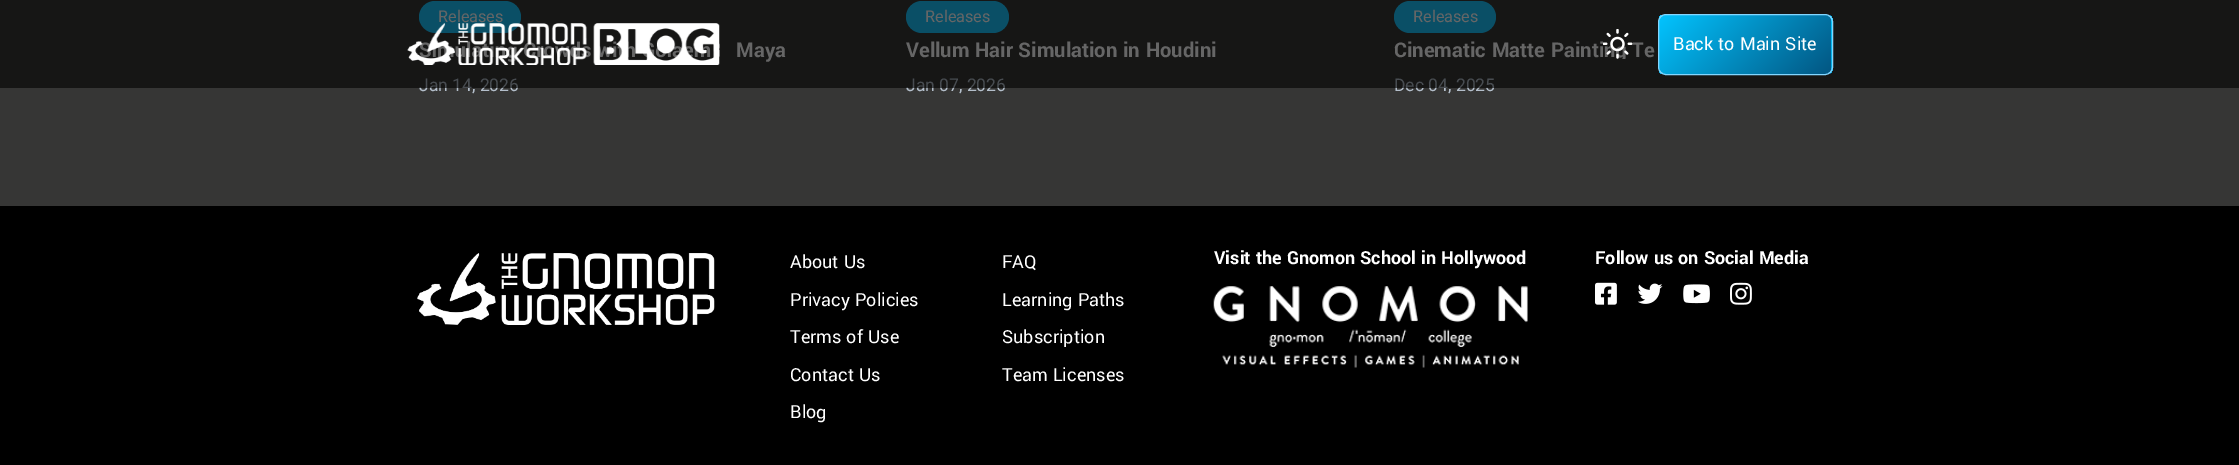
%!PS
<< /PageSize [2239 465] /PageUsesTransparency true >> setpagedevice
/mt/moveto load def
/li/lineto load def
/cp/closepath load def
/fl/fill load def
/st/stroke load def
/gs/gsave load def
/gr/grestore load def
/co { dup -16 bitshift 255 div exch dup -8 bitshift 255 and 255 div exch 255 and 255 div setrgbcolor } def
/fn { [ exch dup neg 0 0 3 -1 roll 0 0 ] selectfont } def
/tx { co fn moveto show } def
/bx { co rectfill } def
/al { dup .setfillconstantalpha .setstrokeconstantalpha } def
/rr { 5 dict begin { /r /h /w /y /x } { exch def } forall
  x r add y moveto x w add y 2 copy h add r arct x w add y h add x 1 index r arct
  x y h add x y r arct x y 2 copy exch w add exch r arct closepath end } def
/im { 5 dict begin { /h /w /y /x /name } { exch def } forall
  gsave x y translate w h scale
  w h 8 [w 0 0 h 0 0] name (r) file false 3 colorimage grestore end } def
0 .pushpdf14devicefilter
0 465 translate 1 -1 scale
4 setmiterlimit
0 0 2239 465 16#363635 bx
16#1AC6FF co
419 1 102 32 16 rr fl
906 1 103 32 16 rr fl
1394 1 102 32 16 rr fl
0 206 2239 259 16#000000 bx
(media/3.raw) 417 253 298 72 im
(media/4.raw) 1213 286 315 82 im
(media/5.raw) 1595 282 22 23 im
(media/6.raw) 1638 283 25 21 im
(media/7.raw) 1683 284 27 20 im
(media/8.raw) 1730 282 22 23 im
(Releases) 438 22 /Roboto-Regular 16.25 16#FFFFFF tx
(Maya) 736 57 /Yantramanav-Bold 22.5 16#FFFFFF tx
(Jan 14, 2026) 419 91 /Roboto-Regular 17.5 16#B4BFCB tx
(Releases) 925 22 /Roboto-Regular 16.25 16#FFFFFF tx
(Vellum Hair Simulation in Houdini) 906 57 /Yantramanav-Bold 22.5 16#FFFFFF tx
(Jan 07, 2026) 906 91 /Roboto-Regular 17.5 16#B4BFCB tx
(Releases) 1413 22 /Roboto-Regular 16.25 16#FFFFFF tx
(Cinematic Matte Painti) 1394 57 /Yantramanav-Bold 22.5 16#FFFFFF tx
(Te) 1632 57 /Yantramanav-Bold 22.5 16#FFFFFF tx
(Dec 04, 2025) 1394 91 /Roboto-Regular 17.5 16#B4BFCB tx
0.6 al
0 0 2239 88 16#000000 bx
1 al
(media/1.raw) 407 23 313 42 im
(media/2.raw) 1603 29 30 30 im
gs
1658 14 175 61 8 rr clip newpath
gs 1659 15 mt 1831 15 li 1831 74 li 1659 74 li cp clip newpath
<< /ShadingType 2 /ColorSpace /DeviceRGB /Coords [1687 -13 1803 102] /Extend [true true] /Function << /FunctionType 2 /Domain [0 1] /C0 [.008 .769 1] /C1 [.012 .337 .51] /N 1 >> >> shfill gr
gs 1831 15 mt 1833 15 li 1833 74 li 1831 74 li cp clip newpath
<< /ShadingType 2 /ColorSpace /DeviceRGB /Coords [1860 -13 1975 102] /Extend [true true] /Function << /FunctionType 2 /Domain [0 1] /C0 [.008 .769 1] /C1 [.012 .337 .51] /N 1 >> >> shfill gr
gr
16#82D6FF co
1658.5 14.5 174 60 7.5 rr st
(Back to Main Site) 1673 50 /Yantramanav-Regular 20 16#FFFFFF tx
(About Us) 790 268 /Yantramanav-Regular 20 16#FFFFFF tx
(Privacy Policies) 790 306 /Yantramanav-Regular 20 16#FFFFFF tx
(Terms of Use) 790 343 /Yantramanav-Regular 20 16#FFFFFF tx
(Contact Us) 790 381 /Yantramanav-Regular 20 16#FFFFFF tx
(Blog) 790 418 /Yantramanav-Regular 20 16#FFFFFF tx
(FAQ) 1002 268 /Yantramanav-Regular 20 16#FFFFFF tx
(Learning Paths) 1002 306 /Yantramanav-Regular 20 16#FFFFFF tx
(Subscription) 1002 343 /Yantramanav-Regular 20 16#FFFFFF tx
(Team Licenses) 1002 381 /Yantramanav-Regular 20 16#FFFFFF tx
(Visit the Gnomon School in Hollywood) 1214 264 /Yantramanav-Bold 20 16#FFFFFF tx
(Follow us on Social Media) 1595 264 /Yantramanav-Bold 20 16#FFFFFF tx
.poppdf14devicefilter showpage
